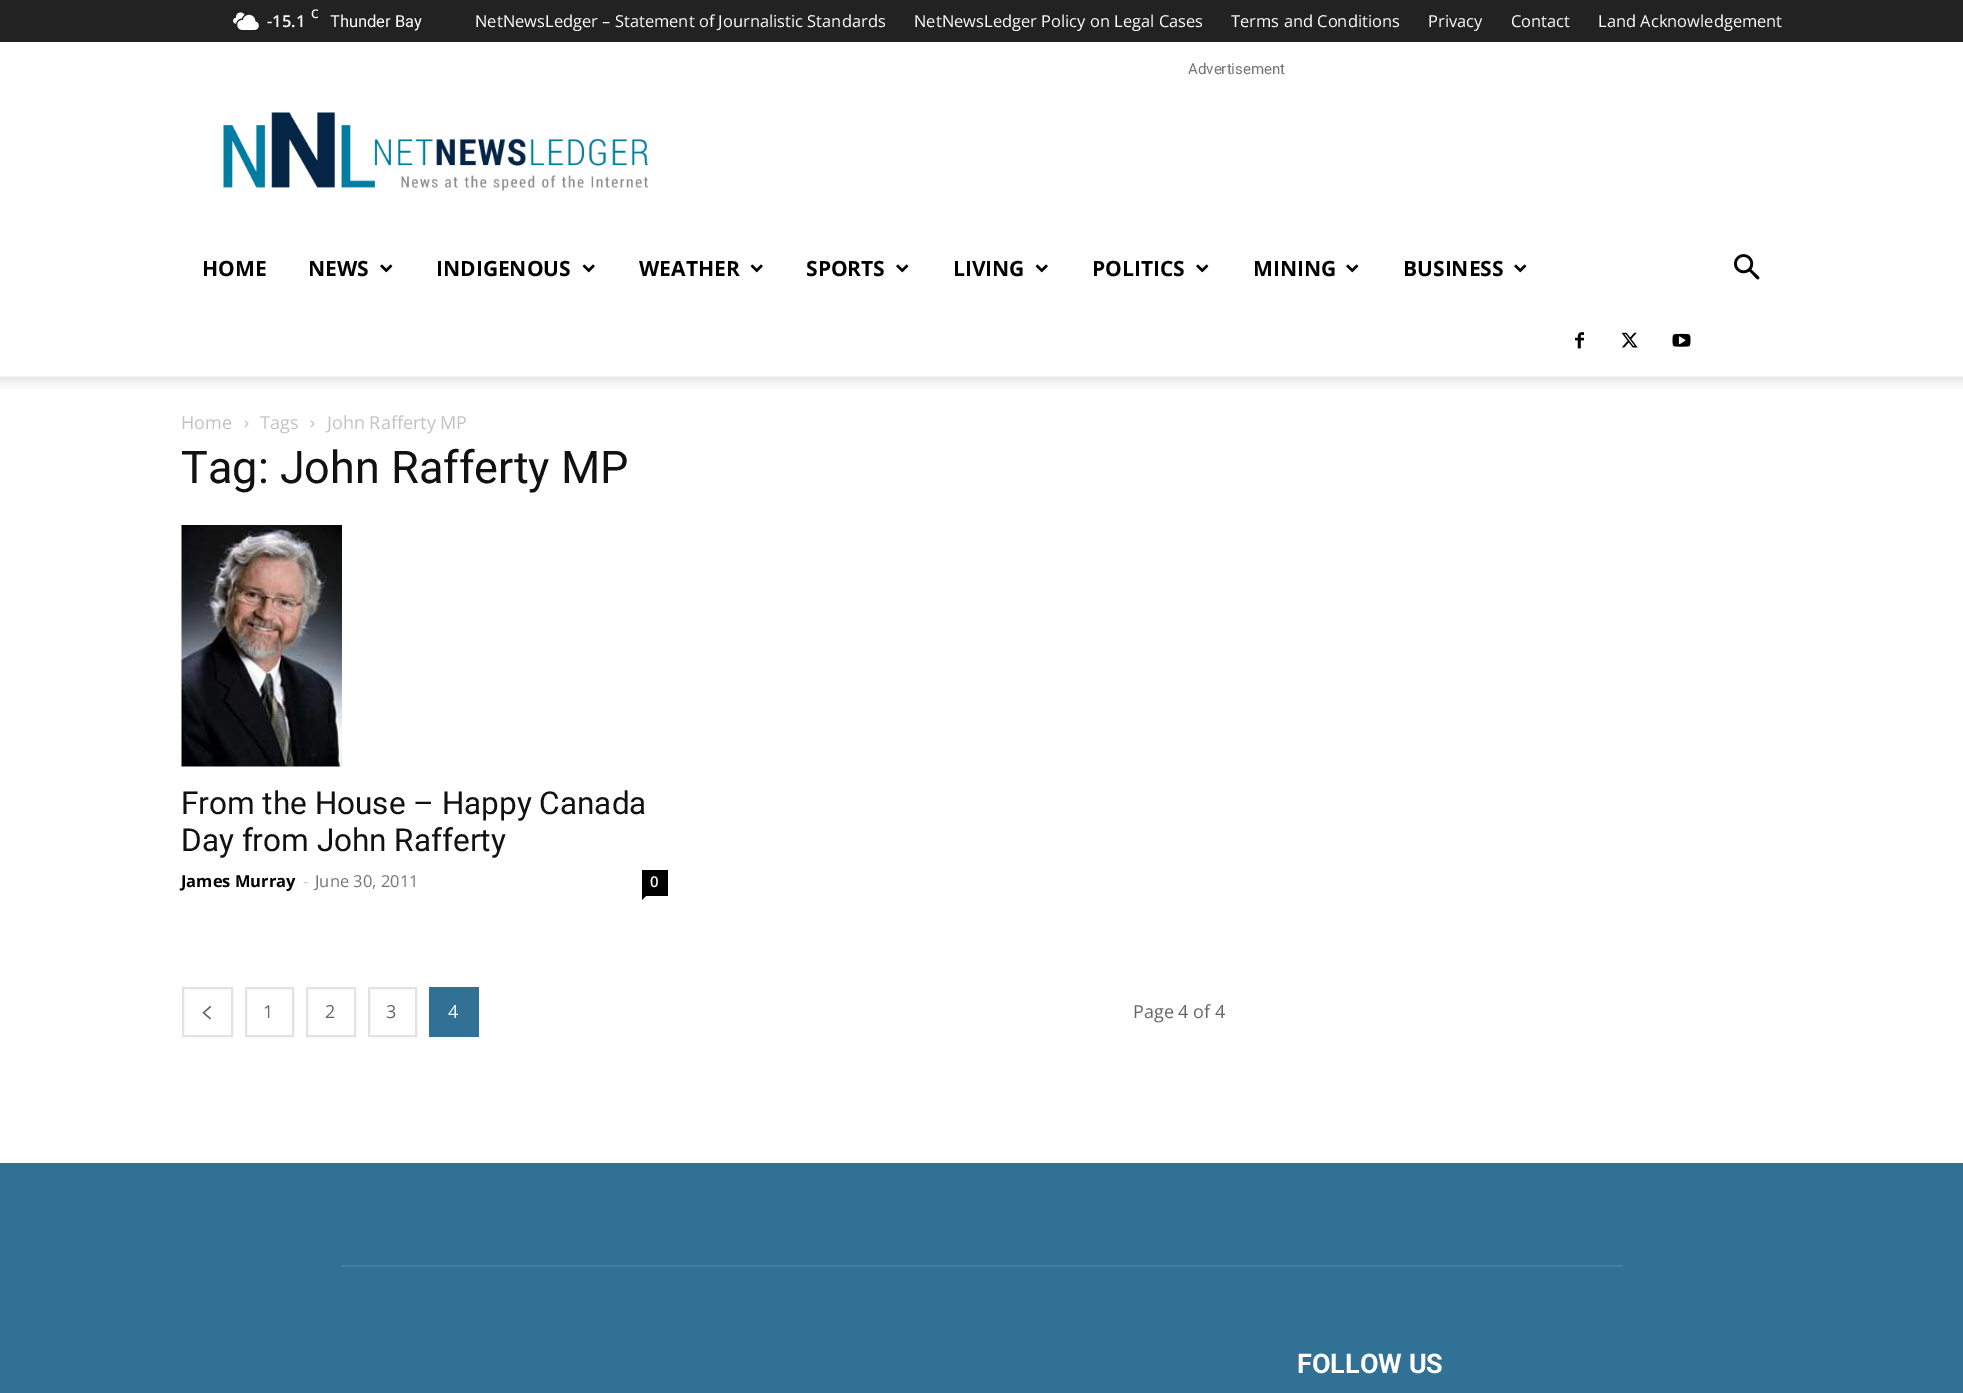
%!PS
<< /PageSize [1963 1393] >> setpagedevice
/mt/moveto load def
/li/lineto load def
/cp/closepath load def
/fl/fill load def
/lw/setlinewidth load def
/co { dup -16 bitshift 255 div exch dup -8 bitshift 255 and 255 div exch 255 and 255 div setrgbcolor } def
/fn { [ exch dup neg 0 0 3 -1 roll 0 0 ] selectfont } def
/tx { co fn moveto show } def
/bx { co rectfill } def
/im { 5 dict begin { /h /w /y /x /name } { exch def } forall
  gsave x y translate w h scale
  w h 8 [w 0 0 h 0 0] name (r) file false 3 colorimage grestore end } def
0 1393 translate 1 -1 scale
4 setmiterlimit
0 0 1963 1393 16#FFFFFF bx
0 0 1963 42 16#222222 bx
(media/1.raw) 233 12 26 18 im
(media/2.raw) 223 112 425 79 im
(media/3.raw) 380 264 13 9 im
(media/4.raw) 582 264 13 9 im
(media/4.raw) 750 264 13 9 im
(media/3.raw) 896 264 13 9 im
(media/4.raw) 1035 264 13 9 im
(media/3.raw) 1196 264 13 9 im
(media/3.raw) 1346 264 13 9 im
(media/3.raw) 1514 264 13 9 im
(media/5.raw) 1734 254 26 26 im
(media/6.raw) 1575 332 9 17 im
(media/7.raw) 1621 332 17 16 im
(media/8.raw) 1672 333 19 14 im
(media/9.raw) 0 376 1963 13 im
(media/10.raw) 244 420 5 8 im
(media/10.raw) 310 420 5 8 im
(media/11.raw) 181 525 161 242 im
642 870 26 26 16#000000 bx
642 895.5 mt 646.5 895.5 li 642 900 li cp fl
16#E3E3E3 co
2 lw
183 988 49 48 rectstroke
(media/12.raw) 202 1006 10 14 im
246 988 47 48 rectstroke
307 988 48 48 rectstroke
369 988 47 48 rectstroke
429 987 50 50 16#317196 bx
0 1163 1963 230 16#317196 bx
341 1265 1282 2 16#467FA1 bx
(C) 311 18 /OpenSans-SemiBold 12 16#FFFFFF tx
(-15.1) 267 27 /OpenSans-SemiBold 16.5 16#FFFFFF tx
(Thunder Bay) 330 27 /Roboto-Regular 16.5 16#FFFFFF tx
(NetNewsLedger – Statement of Journalistic Standards) 475 27 /OpenSans-Regular 16.5 16#FFFFFF tx
(NetNewsLedger Policy on Legal Cases) 914 27 /OpenSans-Regular 16.5 16#FFFFFF tx
(Terms and Conditions) 1231 27 /OpenSans-Regular 16.5 16#FFFFFF tx
(Privacy) 1428 27 /OpenSans-Regular 16.5 16#FFFFFF tx
(Contact) 1511 27 /OpenSans-Regular 16.5 16#FFFFFF tx
(Land Acknowledgement) 1598 27 /OpenSans-Regular 16.5 16#FFFFFF tx
(Advertisement) 1188 74 /Roboto-Regular 15 16#767676 tx
(HOME) 202 276 /OpenSans-Bold 21 16#000000 tx
(NEWS) 308 276 /OpenSans-Bold 21 16#000000 tx
(INDIGENOUS) 436 276 /OpenSans-Bold 21 16#000000 tx
(WEATHER) 639 276 /OpenSans-Bold 21 16#000000 tx
(SPORTS) 806 276 /OpenSans-Bold 21 16#000000 tx
(LIVING) 953 276 /OpenSans-Bold 21 16#000000 tx
(POLITICS) 1092 276 /OpenSans-Bold 21 16#000000 tx
(MINING) 1253 276 /OpenSans-Bold 21 16#000000 tx
(BUSINESS) 1403 276 /OpenSans-Bold 21 16#000000 tx
(Home) 181 429 /OpenSans-Regular 18 16#C3C3C3 tx
(Tags) 260 429 /OpenSans-Regular 18 16#C3C3C3 tx
(John Rafferty MP) 327 429 /OpenSans-Regular 18 16#C3C3C3 tx
(Tag: John Rafferty MP) 181 483 /Roboto-Regular 45 16#111111 tx
(From the House – Happy Canada) 181 814 /Roboto-Regular 31.5 16#111111 tx
(Day from John Rafferty) 181 851 /Roboto-Regular 31.5 16#111111 tx
(James Murray) 181 887 /OpenSans-Bold 16.5 16#000000 tx
(-) 303 887 /OpenSans-Regular 16.5 16#CCCCCC tx
(June 30, 2011) 315 887 /OpenSans-Regular 16.5 16#767676 tx
(0) 650 887 /OpenSans-SemiBold 15 16#FFFFFF tx
(1) 263 1018 /OpenSans-Regular 18 16#666666 tx
(2) 325 1018 /OpenSans-Regular 18 16#666666 tx
(3) 386 1018 /OpenSans-Regular 18 16#666666 tx
(4) 448 1018 /OpenSans-Regular 18 16#FFFFFF tx
(Page 4 of 4) 1133 1018 /OpenSans-Regular 18 16#666666 tx
(FOLLOW US) 1297 1373 /Roboto-Bold 27 16#FFFFFF tx
showpage
